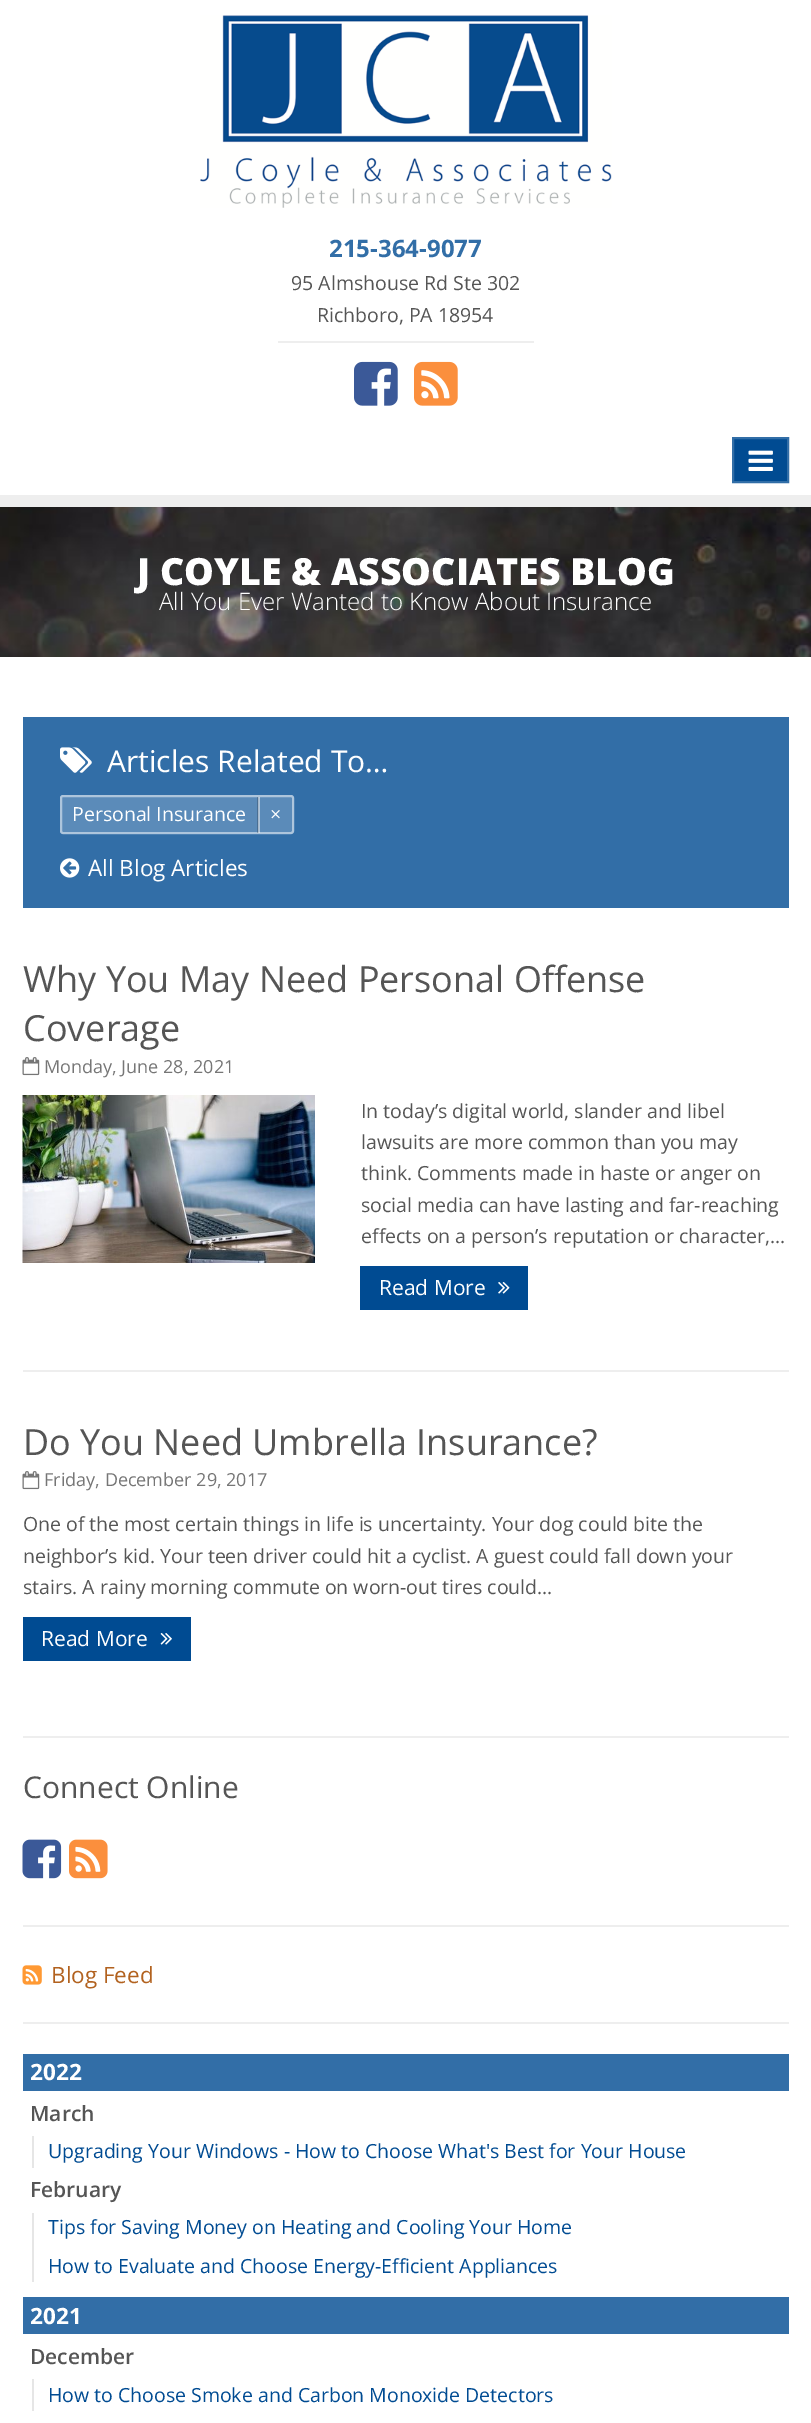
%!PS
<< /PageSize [811 2423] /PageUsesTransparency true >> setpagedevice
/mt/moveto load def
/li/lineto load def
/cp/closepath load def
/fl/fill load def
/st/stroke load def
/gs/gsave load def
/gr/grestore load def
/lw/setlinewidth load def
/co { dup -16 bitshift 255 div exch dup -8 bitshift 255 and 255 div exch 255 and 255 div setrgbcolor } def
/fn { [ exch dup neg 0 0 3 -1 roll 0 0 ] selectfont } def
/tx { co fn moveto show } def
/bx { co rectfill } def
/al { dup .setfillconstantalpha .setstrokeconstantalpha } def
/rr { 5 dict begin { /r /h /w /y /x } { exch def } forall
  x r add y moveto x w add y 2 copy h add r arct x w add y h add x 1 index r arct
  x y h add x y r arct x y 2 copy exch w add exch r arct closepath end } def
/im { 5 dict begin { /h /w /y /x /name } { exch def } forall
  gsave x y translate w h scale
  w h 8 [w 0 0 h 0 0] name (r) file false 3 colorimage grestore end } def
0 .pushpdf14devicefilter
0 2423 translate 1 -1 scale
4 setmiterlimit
0 0 811 2423 16#FFFFFF bx
0 495 811 12 16#EEEEEE bx
(media/1.raw) 200 15 412 193 im
278 341 256 2 16#EEEEEE bx
(media/2.raw) 354 361 44 45 im
(media/3.raw) 414 361 44 45 im
16#004B92 co
733 438 mt 788 438 li 788 482 li 733 482 li cp gs fl gr
16#326EA7 co
2 lw
st
(media/4.raw) 748 450 25 21 im
(media/5.raw) 0 507 811 150 im
23 717 766 191 16#326EA7 bx
(media/6.raw) 60 747 32 26 im
16#5B8BB9 co
60 795 234 39 3 rr fl
0.5 al
16#FFFFFF co
61 796 232 37 2 rr st
0.2 al
257 797 2 36 16#000000 bx
0.5 al
258 797 2 36 16#FFFFFF bx
1 al
(media/7.raw) 60 858 20 20 im
(media/8.raw) 22 1057 18 19 im
(media/9.raw) 22 1095 293 168 im
360 1266 168 44 16#004B92 bx
(media/10.raw) 498 1282 12 12 im
23 1370 766 2 16#EEEEEE bx
(media/8.raw) 22 1471 18 19 im
23 1617 168 44 16#004B92 bx
(media/11.raw) 160 1633 12 12 im
23 1736 766 2 16#EEEEEE bx
(media/12.raw) 22 1839 40 40 im
(media/13.raw) 69 1839 39 40 im
23 1925 766 2 16#EEEEEE bx
(media/14.raw) 22 1965 20 20 im
23 2022 766 2 16#EEEEEE bx
23 2054 766 37 16#326EA7 bx
32 2136 2 32 16#E6E6E6 bx
32 2213 2 69 16#E6E6E6 bx
23 2297 766 37 16#326EA7 bx
32 2379 2 32 16#E6E6E6 bx
(215-364-9077) 329 257 /OpenSans-Bold 24 16#326EA7 tx
(95 Almshouse Rd Ste 302) 291 290 /OpenSans-Regular 19.5 16#555555 tx
(Richboro, PA 18954) 317 322 /OpenSans-Regular 19.5 16#555555 tx
(J COYLE & ASSOCIATES BLOG) 137 585 /OpenSans-ExtraBold 37.5 16#FFFFFF tx
(All You Ever Wanted to Know About Insurance) 159 610 /OpenSans-Light 24 16#FFFFFF tx
(Articles Related To…) 107 772 /OpenSans-Regular 30 16#FFFFFF tx
(Personal Insurance) 72 821 /OpenSans-Regular 19.5 16#FFFFFF tx
(×) 270 821 /OpenSans-Regular 19.5 16#FFFFFF tx
(All Blog Articles) 88 876 /OpenSans-Regular 22.5 16#FFFFFF tx
(Why You May Need Personal Offense) 23 992 /OpenSans-Regular 36 16#555555 tx
(Coverage) 23 1041 /OpenSans-Regular 36 16#555555 tx
(Monday, June 28, 2021) 44 1073 /OpenSans-Regular 18 16#767676 tx
(In today’s digital world, slander and libel) 361 1118 /OpenSans-Regular 19.5 16#555555 tx
(lawsuits are more common than you may) 361 1149 /OpenSans-Regular 19.5 16#555555 tx
(think. Comments made in haste or anger on) 361 1180 /OpenSans-Regular 19.5 16#555555 tx
(social media can have lasting and far-reaching) 361 1212 /OpenSans-Regular 19.5 16#555555 tx
(effects on a person’s reputation or character,...) 361 1243 /OpenSans-Regular 19.5 16#555555 tx
(Read More) 379 1295 /OpenSans-Regular 21 16#FFFFFF tx
(Do You Need Umbrella Insurance?) 23 1455 /OpenSans-Regular 36 16#555555 tx
(Friday, December 29, 2017) 44 1486 /OpenSans-Regular 18 16#767676 tx
(One of the most certain things in life is uncertainty. Your dog could bite the) 23 1531 /OpenSans-Regular 19.5 16#555555 tx
(neighbor’s kid. Your teen driver could hit a cyclist. A guest could fall down your) 23 1563 /OpenSans-Regular 19.5 16#555555 tx
(stairs. A rainy morning commute on worn-out tires could...) 23 1594 /OpenSans-Regular 19.5 16#555555 tx
(Read More) 41 1646 /OpenSans-Regular 21 16#FFFFFF tx
(Connect Online) 23 1798 /OpenSans-Regular 30 16#555555 tx
(Blog Feed) 51 1983 /OpenSans-Regular 22.5 16#B2621F tx
(2022) 30 2080 /OpenSans-Bold 22.5 16#FFFFFF tx
(March) 30 2121 /OpenSans-SemiBold 21 16#555555 tx
(Upgrading Your Windows - How to Choose What's Best for Your House) 48 2158 /OpenSans-Regular 19.5 16#004B92 tx
(February) 30 2197 /OpenSans-SemiBold 21 16#555555 tx
(Tips for Saving Money on Heating and Cooling Your Home) 48 2234 /OpenSans-Regular 19.5 16#004B92 tx
(How to Evaluate and Choose Energy-Efficient Appliances) 48 2273 /OpenSans-Regular 19.5 16#004B92 tx
(2021) 30 2324 /OpenSans-Bold 22.5 16#FFFFFF tx
(December) 30 2364 /OpenSans-SemiBold 21 16#555555 tx
(How to Choose Smoke and Carbon Monoxide Detectors) 48 2402 /OpenSans-Regular 19.5 16#004B92 tx
.poppdf14devicefilter showpage
